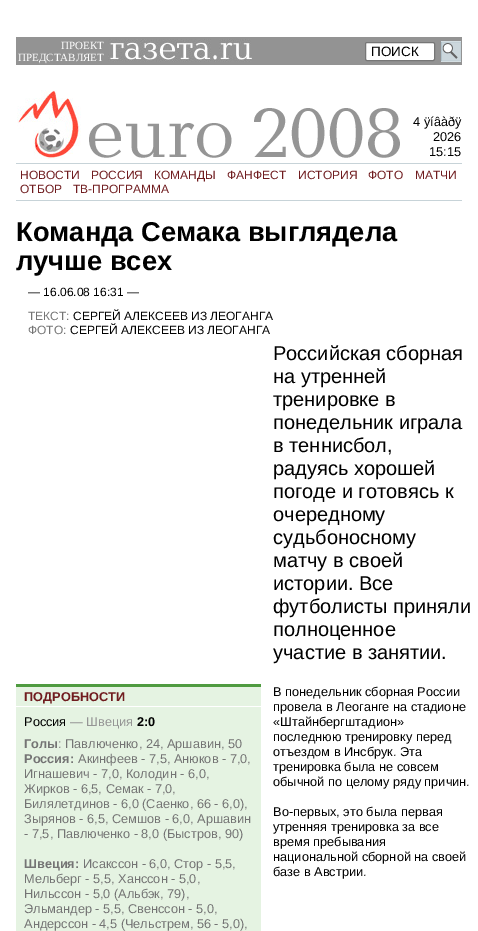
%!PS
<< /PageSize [478 931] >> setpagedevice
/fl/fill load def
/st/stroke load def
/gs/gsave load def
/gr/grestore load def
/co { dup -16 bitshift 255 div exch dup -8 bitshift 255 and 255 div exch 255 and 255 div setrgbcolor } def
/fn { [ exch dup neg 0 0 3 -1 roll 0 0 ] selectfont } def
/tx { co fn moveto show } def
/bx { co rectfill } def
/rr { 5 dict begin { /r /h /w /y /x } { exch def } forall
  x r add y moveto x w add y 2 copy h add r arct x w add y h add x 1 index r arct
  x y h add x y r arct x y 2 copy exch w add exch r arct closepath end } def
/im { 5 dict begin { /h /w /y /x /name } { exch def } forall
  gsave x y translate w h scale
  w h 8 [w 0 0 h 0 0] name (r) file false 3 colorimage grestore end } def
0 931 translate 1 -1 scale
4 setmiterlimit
0 0 478 931 16#FFFFFF bx
16 37 446 28 16#939393 bx
(media/1.raw) 108 39 144 23 im
16#FFFFFF co
365.5 42.5 69 18 1.5 rr gs fl gr
16#767676 co
st
(media/2.raw) 441 41 20 21 im
(media/3.raw) 17 90 64 69 im
(media/4.raw) 89 108 311 50 im
16 163 446 1 16#C7D3D8 bx
16 200 446 1 16#C7D3D8 bx
16 687 245 19 16#E5F3E2 bx
16 684 245 3 16#4F9B40 bx
16 707 245 224 16#E5F3E2 bx
(ПРОЕКТ) 61 49 /LiberationSerif-Regular 11 16#FFFFFF tx
(ПРЕДСТАВЛЯЕТ) 18 61 /LiberationSerif-Regular 11 16#FFFFFF tx
(ПОИСК) 371 56 /LiberationSans-Regular 13.5 16#000000 tx
(4 ÿíâàðÿ) 413 126 /LiberationSans-Regular 12.75 16#000000 tx
(2026) 433 141 /LiberationSans-Regular 12.75 16#000000 tx
(15:15) 429 156 /LiberationSans-Regular 12.75 16#000000 tx
(НОВОСТИ) 20 179 /LiberationSans-Regular 12 16#701C1F tx
(РОССИЯ) 91 179 /LiberationSans-Regular 12 16#701C1F tx
(КОМАНДЫ) 154 179 /LiberationSans-Regular 12 16#701C1F tx
(ФАНФЕСТ) 227 179 /LiberationSans-Regular 12 16#701C1F tx
(ИСТОРИЯ) 298 179 /LiberationSans-Regular 12 16#701C1F tx
(ФОТО) 368 179 /LiberationSans-Regular 12 16#701C1F tx
(МАТЧИ) 415 179 /LiberationSans-Regular 12 16#701C1F tx
(ОТБОР) 20 193 /LiberationSans-Regular 12 16#701C1F tx
(ТВ-ПРОГРАММА) 73 193 /LiberationSans-Regular 12 16#701C1F tx
(Команда Семака выглядела) 16 241 /LiberationSans-Bold 27.25 16#000000 tx
(лучше всех) 16 270 /LiberationSans-Bold 27.25 16#000000 tx
(— 16.06.08 16:31 —) 28 296 /LiberationSans-Regular 12 16#000000 tx
(ТЕКСТ:) 28 320 /LiberationSans-Regular 12 16#747474 tx
(СЕРГЕЙ АЛЕКСЕЕВ ИЗ ЛЕОГАНГА) 73 320 /LiberationSans-Regular 12 16#000000 tx
(ФОТО:) 28 334 /LiberationSans-Regular 12 16#747474 tx
(СЕРГЕЙ АЛЕКСЕЕВ ИЗ ЛЕОГАНГА) 70 334 /LiberationSans-Regular 12 16#000000 tx
(Российская сборная) 273 360 /LiberationSans-Regular 20 16#000000 tx
(на утренней) 273 383 /LiberationSans-Regular 20 16#000000 tx
(тренировке в) 273 406 /LiberationSans-Regular 20 16#000000 tx
(понедельник играла) 273 429 /LiberationSans-Regular 20 16#000000 tx
(в теннисбол,) 273 452 /LiberationSans-Regular 20 16#000000 tx
(радуясь хорошей) 273 475 /LiberationSans-Regular 20 16#000000 tx
(погоде и готовясь к) 273 498 /LiberationSans-Regular 20 16#000000 tx
(очередному) 273 521 /LiberationSans-Regular 20 16#000000 tx
(судьбоносному) 273 544 /LiberationSans-Regular 20 16#000000 tx
(матчу в своей) 273 567 /LiberationSans-Regular 20 16#000000 tx
(истории. Все) 273 590 /LiberationSans-Regular 20 16#000000 tx
(футболисты приняли) 273 613 /LiberationSans-Regular 20 16#000000 tx
(полноценное) 273 636 /LiberationSans-Regular 20 16#000000 tx
(участие в занятии.) 273 659 /LiberationSans-Regular 20 16#000000 tx
(ПОДРОБНОСТИ) 24 701 /LiberationSans-Bold 12.75 16#701C1F tx
(Россия) 24 726 /LiberationSans-Regular 12.75 16#000000 tx
(— Швеция) 70 726 /LiberationSans-Regular 12.75 16#959595 tx
(2:0) 137 726 /LiberationSans-Bold 12.75 16#000000 tx
(Голы) 24 748 /LiberationSans-Bold 12.75 16#747474 tx
(: Павлюченко, 24, Аршавин, 50) 58 748 /LiberationSans-Regular 12.75 16#747474 tx
(Россия:) 24 763 /LiberationSans-Bold 12.75 16#747474 tx
(Акинфеев - 7,5, Анюков - 7,0,) 78 763 /LiberationSans-Regular 12.75 16#747474 tx
(Игнашевич - 7,0, Колодин - 6,0,) 24 778 /LiberationSans-Regular 12.75 16#747474 tx
(Жирков - 6,5, Семак - 7,0,) 24 793 /LiberationSans-Regular 12.75 16#747474 tx
(Билялетдинов - 6,0 \(Саенко, 66 - 6,0\),) 24 808 /LiberationSans-Regular 12.75 16#747474 tx
(Зырянов - 6,5, Семшов - 6,0, Аршавин) 24 823 /LiberationSans-Regular 12.75 16#747474 tx
(- 7,5, Павлюченко - 8,0 \(Быстров, 90\)) 24 838 /LiberationSans-Regular 12.75 16#747474 tx
(Швеция:) 24 868 /LiberationSans-Bold 12.75 16#747474 tx
(Исакссон - 6,0, Стор - 5,5,) 83 868 /LiberationSans-Regular 12.75 16#747474 tx
(Мельберг - 5,5, Ханссон - 5,0,) 24 883 /LiberationSans-Regular 12.75 16#747474 tx
(Нильссон - 5,0 \(Альбэк, 79\),) 24 898 /LiberationSans-Regular 12.75 16#747474 tx
(Эльмандер - 5,5, Свенссон - 5,0,) 24 913 /LiberationSans-Regular 12.75 16#747474 tx
(Андерссон - 4,5 \(Чельстрем, 56 - 5,0\),) 24 928 /LiberationSans-Regular 12.75 16#747474 tx
(В понедельник сборная России) 273 696 /LiberationSans-Regular 12.75 16#000000 tx
(провела в Леоганге на стадионе) 273 711 /LiberationSans-Regular 12.75 16#000000 tx
(«Штайнбергштадион») 273 726 /LiberationSans-Regular 12.75 16#000000 tx
(последнюю тренировку перед) 273 741 /LiberationSans-Regular 12.75 16#000000 tx
(отъездом в Инсбрук. Эта) 273 756 /LiberationSans-Regular 12.75 16#000000 tx
(тренировка была не совсем) 273 771 /LiberationSans-Regular 12.75 16#000000 tx
(обычной по целому ряду причин.) 273 786 /LiberationSans-Regular 12.75 16#000000 tx
(Во-первых, это была первая) 273 816 /LiberationSans-Regular 12.75 16#000000 tx
(утренняя тренировка за все) 273 831 /LiberationSans-Regular 12.75 16#000000 tx
(время пребывания) 273 846 /LiberationSans-Regular 12.75 16#000000 tx
(национальной сборной на своей) 273 861 /LiberationSans-Regular 12.75 16#000000 tx
(базе в Австрии.) 273 876 /LiberationSans-Regular 12.75 16#000000 tx
showpage
